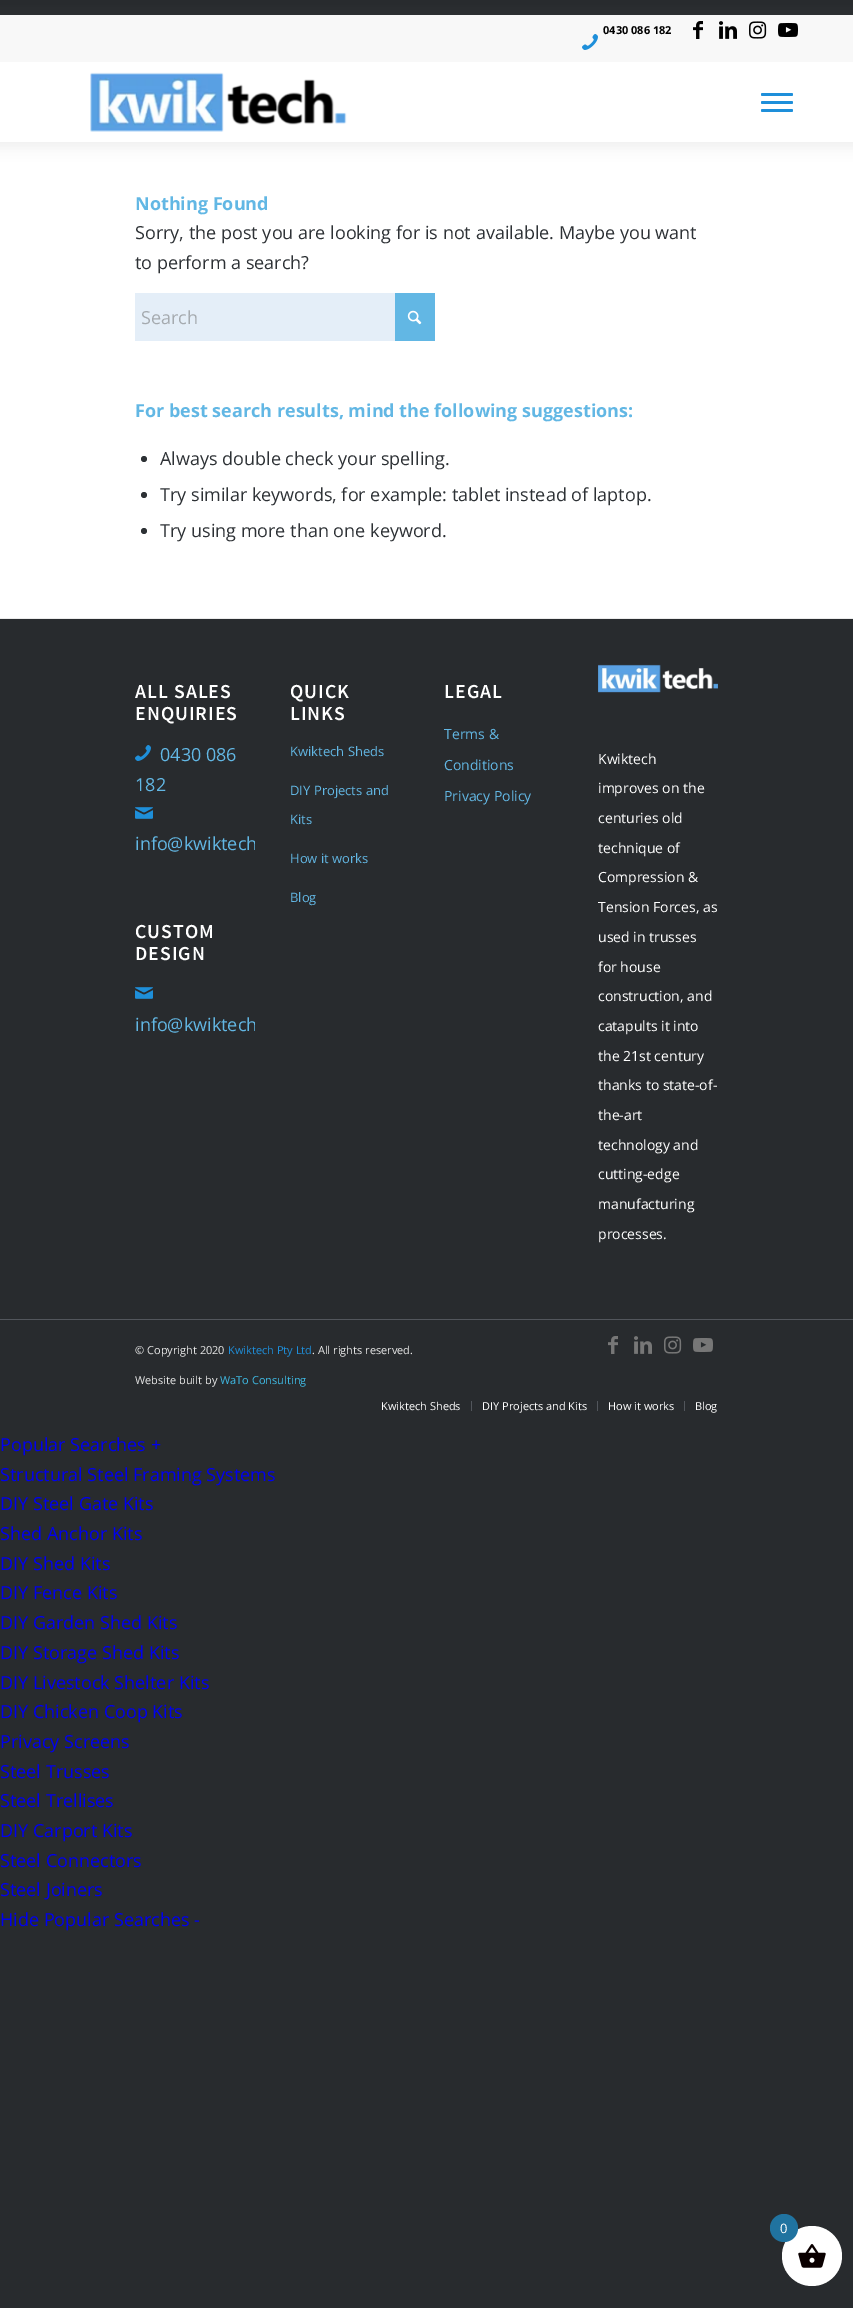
%!PS
<< /PageSize [853 2308] /PageUsesTransparency true >> setpagedevice
/mt/moveto load def
/li/lineto load def
/cp/closepath load def
/fl/fill load def
/gs/gsave load def
/gr/grestore load def
/co { dup -16 bitshift 255 div exch dup -8 bitshift 255 and 255 div exch 255 and 255 div setrgbcolor } def
/fn { [ exch dup neg 0 0 3 -1 roll 0 0 ] selectfont } def
/tx { co fn moveto show } def
/bx { co rectfill } def
/al { dup .setfillconstantalpha .setstrokeconstantalpha } def
/ci { newpath 0 360 arc closepath } def
/rr { 5 dict begin { /r /h /w /y /x } { exch def } forall
  x r add y moveto x w add y 2 copy h add r arct x w add y h add x 1 index r arct
  x y h add x y r arct x y 2 copy exch w add exch r arct closepath end } def
/sh { 12 dict begin { /a /b /q /h /w /y /x } { exch def } forall gsave /was 0 def
  9 -2 -9 { dup b mul 4 div /e exch def 1 sub .425 mul 2.718 exch exp 1 add a .99 .min exch div /now exch def
    1 1 now sub 1 was sub div sub al /was now def
    w h .min e 2 mul add 0 gt { x e sub y e sub w e 2 mul add h e 2 mul add
      q e add b .6 mul add w h .min 2 div e add .min 0 .max rr fill } if } for grestore end } def
/im { 5 dict begin { /h /w /y /x /name } { exch def } forall
  gsave x y translate w h scale
  w h 8 [w 0 0 h 0 0] name (r) file false 3 colorimage grestore end } def
0 .pushpdf14devicefilter
0 2308 translate 1 -1 scale
4 setmiterlimit
0 0 853 2308 16#282B2E bx
0 62 853 556 16#FFFFFF bx
gs
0 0 mt 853 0 li 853 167 li 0 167 li cp 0 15 mt 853 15 li 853 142 li 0 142 li cp eoclip newpath
16#646464 co
-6 9 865 139 0 6 .1 sh
gr
0 15 853 47 16#F8F8F8 bx
(media/1.raw) 582 34 16 16 im
(media/2.raw) 693 21 10 18 im
(media/3.raw) 719 21 18 18 im
(media/4.raw) 749 21 18 18 im
(media/5.raw) 778 22 20 15 im
(media/6.raw) 90 72 257 60 im
16#1E8FDA co
761 93 32 3 1.5 rr fl
761 101 32 3 1.5 rr fl
761 109 32 3 1.5 rr fl
135 293 260 48 16#E4EEF8 bx
395 293 40 48 16#62B7E4 bx
(media/7.raw) 407 310 15 15 im
16#2D3135 co
144 459 3 ci fl
144 495 3 ci fl
144 531 3 ci fl
0 618 853 1 16#EBEBEB bx
(media/8.raw) 135 745 16 16 im
(media/9.raw) 135 807 18 12 im
(media/9.raw) 135 987 18 12 im
(media/10.raw) 598 664 120 29 im
0 1319 853 1 16#52565C bx
(media/11.raw) 608 1336 10 18 im
(media/12.raw) 634 1336 18 18 im
(media/13.raw) 664 1336 18 18 im
(media/14.raw) 693 1338 20 14 im
471 1401 1 10 16#52565C bx
597 1401 1 10 16#52565C bx
684 1401 1 10 16#52565C bx
16#FFFFFF co
812 2256 30 ci fl
16#2073A0 co
784 2228 14 ci fl
(media/15.raw) 798 2244 28 24 im
(0430 086 182) 603 34 /OpenSans-Bold 11 16#000000 tx
(Nothing Found) 135 210 /OpenSans-Bold 18 16#62B7E4 tx
(Sorry, the post you are looking for is not available. Maybe you want) 135 239 /OpenSans-Regular 18 16#2D3135 tx
(to perform a search?) 135 269 /OpenSans-Regular 18 16#2D3135 tx
(Search) 141 324 /OpenSans-Regular 18 16#A5AAAF tx
(For best search results, mind the following suggestions:) 135 417 /OpenSans-Bold 18 16#62B7E4 tx
(Always double check your spelling.) 160 465 /OpenSans-Regular 18 16#2D3135 tx
(Try similar keywords, for example: tablet instead of laptop.) 160 501 /OpenSans-Regular 18 16#2D3135 tx
(Try using more than one keyword.) 160 537 /OpenSans-Regular 18 16#2D3135 tx
/SourceSansPro-SemiBold 19.75 fn
16#FFFFFF co
135 698 mt 1 0 (ALL SALES) ashow
135 720 mt 1 0 (ENQUIRIES) ashow
(0430 086) 160 761 /OpenSans-Regular 18 16#62B7E4 tx
(182) 135 791 /OpenSans-Regular 18 16#62B7E4 tx
gs
135 664 120 210 rectclip
(info@kwiktech) 135 850 /OpenSans-Regular 18 16#62B7E4 tx
gr
/SourceSansPro-SemiBold 19.75 fn
16#FFFFFF co
135 938 mt 1 0 (CUSTOM) ashow
135 960 mt 1 0 (DESIGN) ashow
gs
135 904 120 151 rectclip
(info@kwiktech) 135 1031 /OpenSans-Regular 18 16#62B7E4 tx
gr
290 698 mt 1 0 (QUICK) ashow
290 720 mt 1 0 (LINKS) ashow
(Kwiktech Sheds) 290 756 /OpenSans-Regular 13 16#62B7E4 tx
(DIY Projects and) 290 795 /OpenSans-Regular 13 16#62B7E4 tx
(Kits) 290 824 /OpenSans-Regular 13 16#62B7E4 tx
(How it works) 290 863 /OpenSans-Regular 13 16#62B7E4 tx
(Blog) 290 902 /OpenSans-Regular 13 16#62B7E4 tx
/SourceSansPro-SemiBold 19.75 fn
16#FFFFFF co
444 698 mt 1 0 (LEGAL) ashow
(Terms &) 444 739 /OpenSans-Regular 14 16#62B7E4 tx
(Conditions) 444 770 /OpenSans-Regular 14 16#62B7E4 tx
(Privacy Policy) 444 801 /OpenSans-Regular 14 16#62B7E4 tx
(Kwiktech) 598 764 /OpenSans-Regular 14 16#FFFFFF tx
(improves on the) 598 793 /OpenSans-Regular 14 16#FFFFFF tx
(centuries old) 598 823 /OpenSans-Regular 14 16#FFFFFF tx
(technique of) 598 853 /OpenSans-Regular 14 16#FFFFFF tx
(Compression &) 598 882 /OpenSans-Regular 14 16#FFFFFF tx
(Tension Forces, as) 598 912 /OpenSans-Regular 14 16#FFFFFF tx
(used in trusses) 598 942 /OpenSans-Regular 14 16#FFFFFF tx
(for house) 598 972 /OpenSans-Regular 14 16#FFFFFF tx
(construction, and) 598 1001 /OpenSans-Regular 14 16#FFFFFF tx
(catapults it into) 598 1031 /OpenSans-Regular 14 16#FFFFFF tx
(the 21st century) 598 1061 /OpenSans-Regular 14 16#FFFFFF tx
(thanks to state-of-) 598 1090 /OpenSans-Regular 14 16#FFFFFF tx
(the-art) 598 1120 /OpenSans-Regular 14 16#FFFFFF tx
(technology and) 598 1150 /OpenSans-Regular 14 16#FFFFFF tx
(cutting-edge) 598 1179 /OpenSans-Regular 14 16#FFFFFF tx
(manufacturing) 598 1209 /OpenSans-Regular 14 16#FFFFFF tx
(processes.) 598 1239 /OpenSans-Regular 14 16#FFFFFF tx
(© Copyright 2020) 135 1354 /OpenSans-Regular 11 16#E8E8E8 tx
(Kwiktech Pty Ltd) 228 1354 /OpenSans-Regular 11 16#1E8EDA tx
(. All rights reserved.) 312 1354 /OpenSans-Regular 11 16#E8E8E8 tx
(Website built by) 135 1384 /OpenSans-Regular 11 16#E8E8E8 tx
(WaTo Consulting) 220 1384 /OpenSans-Regular 11 16#3EBAE4 tx
(Kwiktech Sheds) 381 1410 /OpenSans-Regular 11 16#FFFFFF tx
(DIY Projects and Kits) 482 1410 /OpenSans-Regular 11 16#FFFFFF tx
(How it works) 608 1410 /OpenSans-Regular 11 16#FFFFFF tx
(Blog) 695 1410 /OpenSans-Regular 11 16#FFFFFF tx
(Popular Searches +) 0 1451 /OpenSans-Regular 18 16#0000EE tx
(Structural Steel Framing Systems) 0 1481 /OpenSans-Regular 18 16#0000EE tx
(DIY Steel Gate Kits) 0 1510 /OpenSans-Regular 18 16#0000EE tx
(Shed Anchor Kits) 0 1540 /OpenSans-Regular 18 16#0000EE tx
(DIY Shed Kits) 0 1570 /OpenSans-Regular 18 16#0000EE tx
(DIY Fence Kits) 0 1599 /OpenSans-Regular 18 16#0000EE tx
(DIY Garden Shed Kits) 0 1629 /OpenSans-Regular 18 16#0000EE tx
(DIY Storage Shed Kits) 0 1659 /OpenSans-Regular 18 16#0000EE tx
(DIY Livestock Shelter Kits) 0 1689 /OpenSans-Regular 18 16#0000EE tx
(DIY Chicken Coop Kits) 0 1718 /OpenSans-Regular 18 16#0000EE tx
(Privacy Screens) 0 1748 /OpenSans-Regular 18 16#0000EE tx
(Steel Trusses) 0 1778 /OpenSans-Regular 18 16#0000EE tx
(Steel Trellises) 0 1807 /OpenSans-Regular 18 16#0000EE tx
(DIY Carport Kits) 0 1837 /OpenSans-Regular 18 16#0000EE tx
(Steel Connectors) 0 1867 /OpenSans-Regular 18 16#0000EE tx
(Steel Joiners) 0 1896 /OpenSans-Regular 18 16#0000EE tx
(Hide Popular Searches -) 0 1926 /OpenSans-Regular 18 16#0000EE tx
(0) 780 2233 /OpenSans-Regular 13 16#FFFFFF tx
.poppdf14devicefilter showpage
